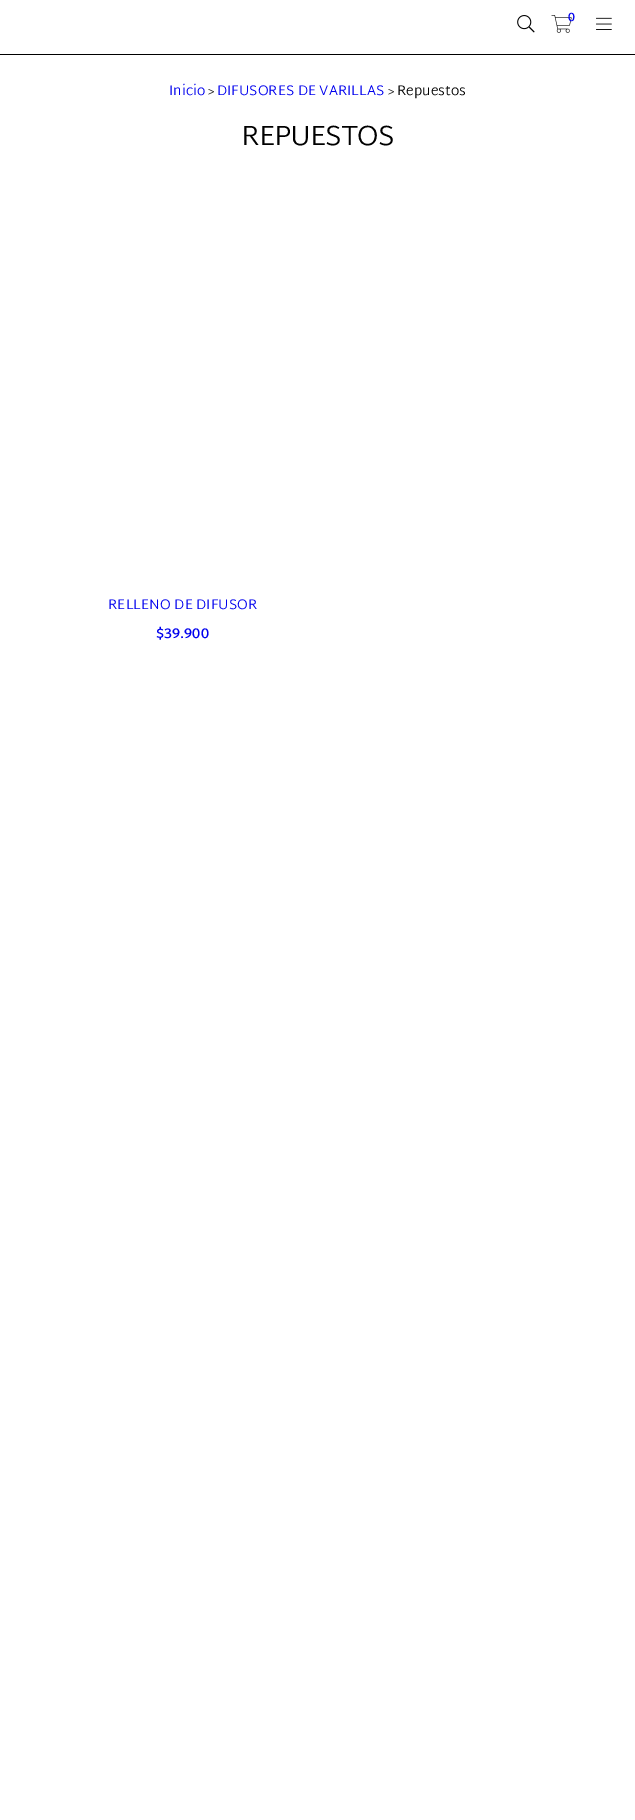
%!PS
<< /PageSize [635 1820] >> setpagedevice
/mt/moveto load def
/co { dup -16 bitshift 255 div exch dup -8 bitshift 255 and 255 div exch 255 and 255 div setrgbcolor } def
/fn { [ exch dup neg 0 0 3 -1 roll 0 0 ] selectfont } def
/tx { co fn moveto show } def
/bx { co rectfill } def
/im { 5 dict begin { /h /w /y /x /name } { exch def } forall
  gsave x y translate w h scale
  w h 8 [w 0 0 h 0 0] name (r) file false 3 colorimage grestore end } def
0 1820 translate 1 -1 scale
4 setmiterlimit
0 0 635 1820 16#FFFFFF bx
(media/1.raw) 517 15 18 18 im
(media/2.raw) 551 15 21 18 im
(media/3.raw) 596 17 16 13 im
0 54 635 1 16#000000 bx
(0) 568 21 /MartelSans-SemiBold 12 16#0000EE tx
(Inicio) 169 95 /MartelSans-Light 14 16#0000EE tx
(>) 208 95 /MartelSans-Light 12 16#000000 tx
(DIFUSORES DE VARILLAS) 217 95 /MartelSans-Light 14 16#0000EE tx
(>) 388 95 /MartelSans-Light 12 16#000000 tx
(Repuestos) 397 95 /MartelSans-Light 14 16#000000 tx
/MartelSans-Light 28 fn
241 145 mt -1 0 (REPUESTOS) ashow
(RELLENO DE DIFUSOR) 108 609 /MartelSans-Light 14 16#0000EE tx
($39.900) 156 638 /MartelSans-SemiBold 14 16#0000EE tx
showpage
